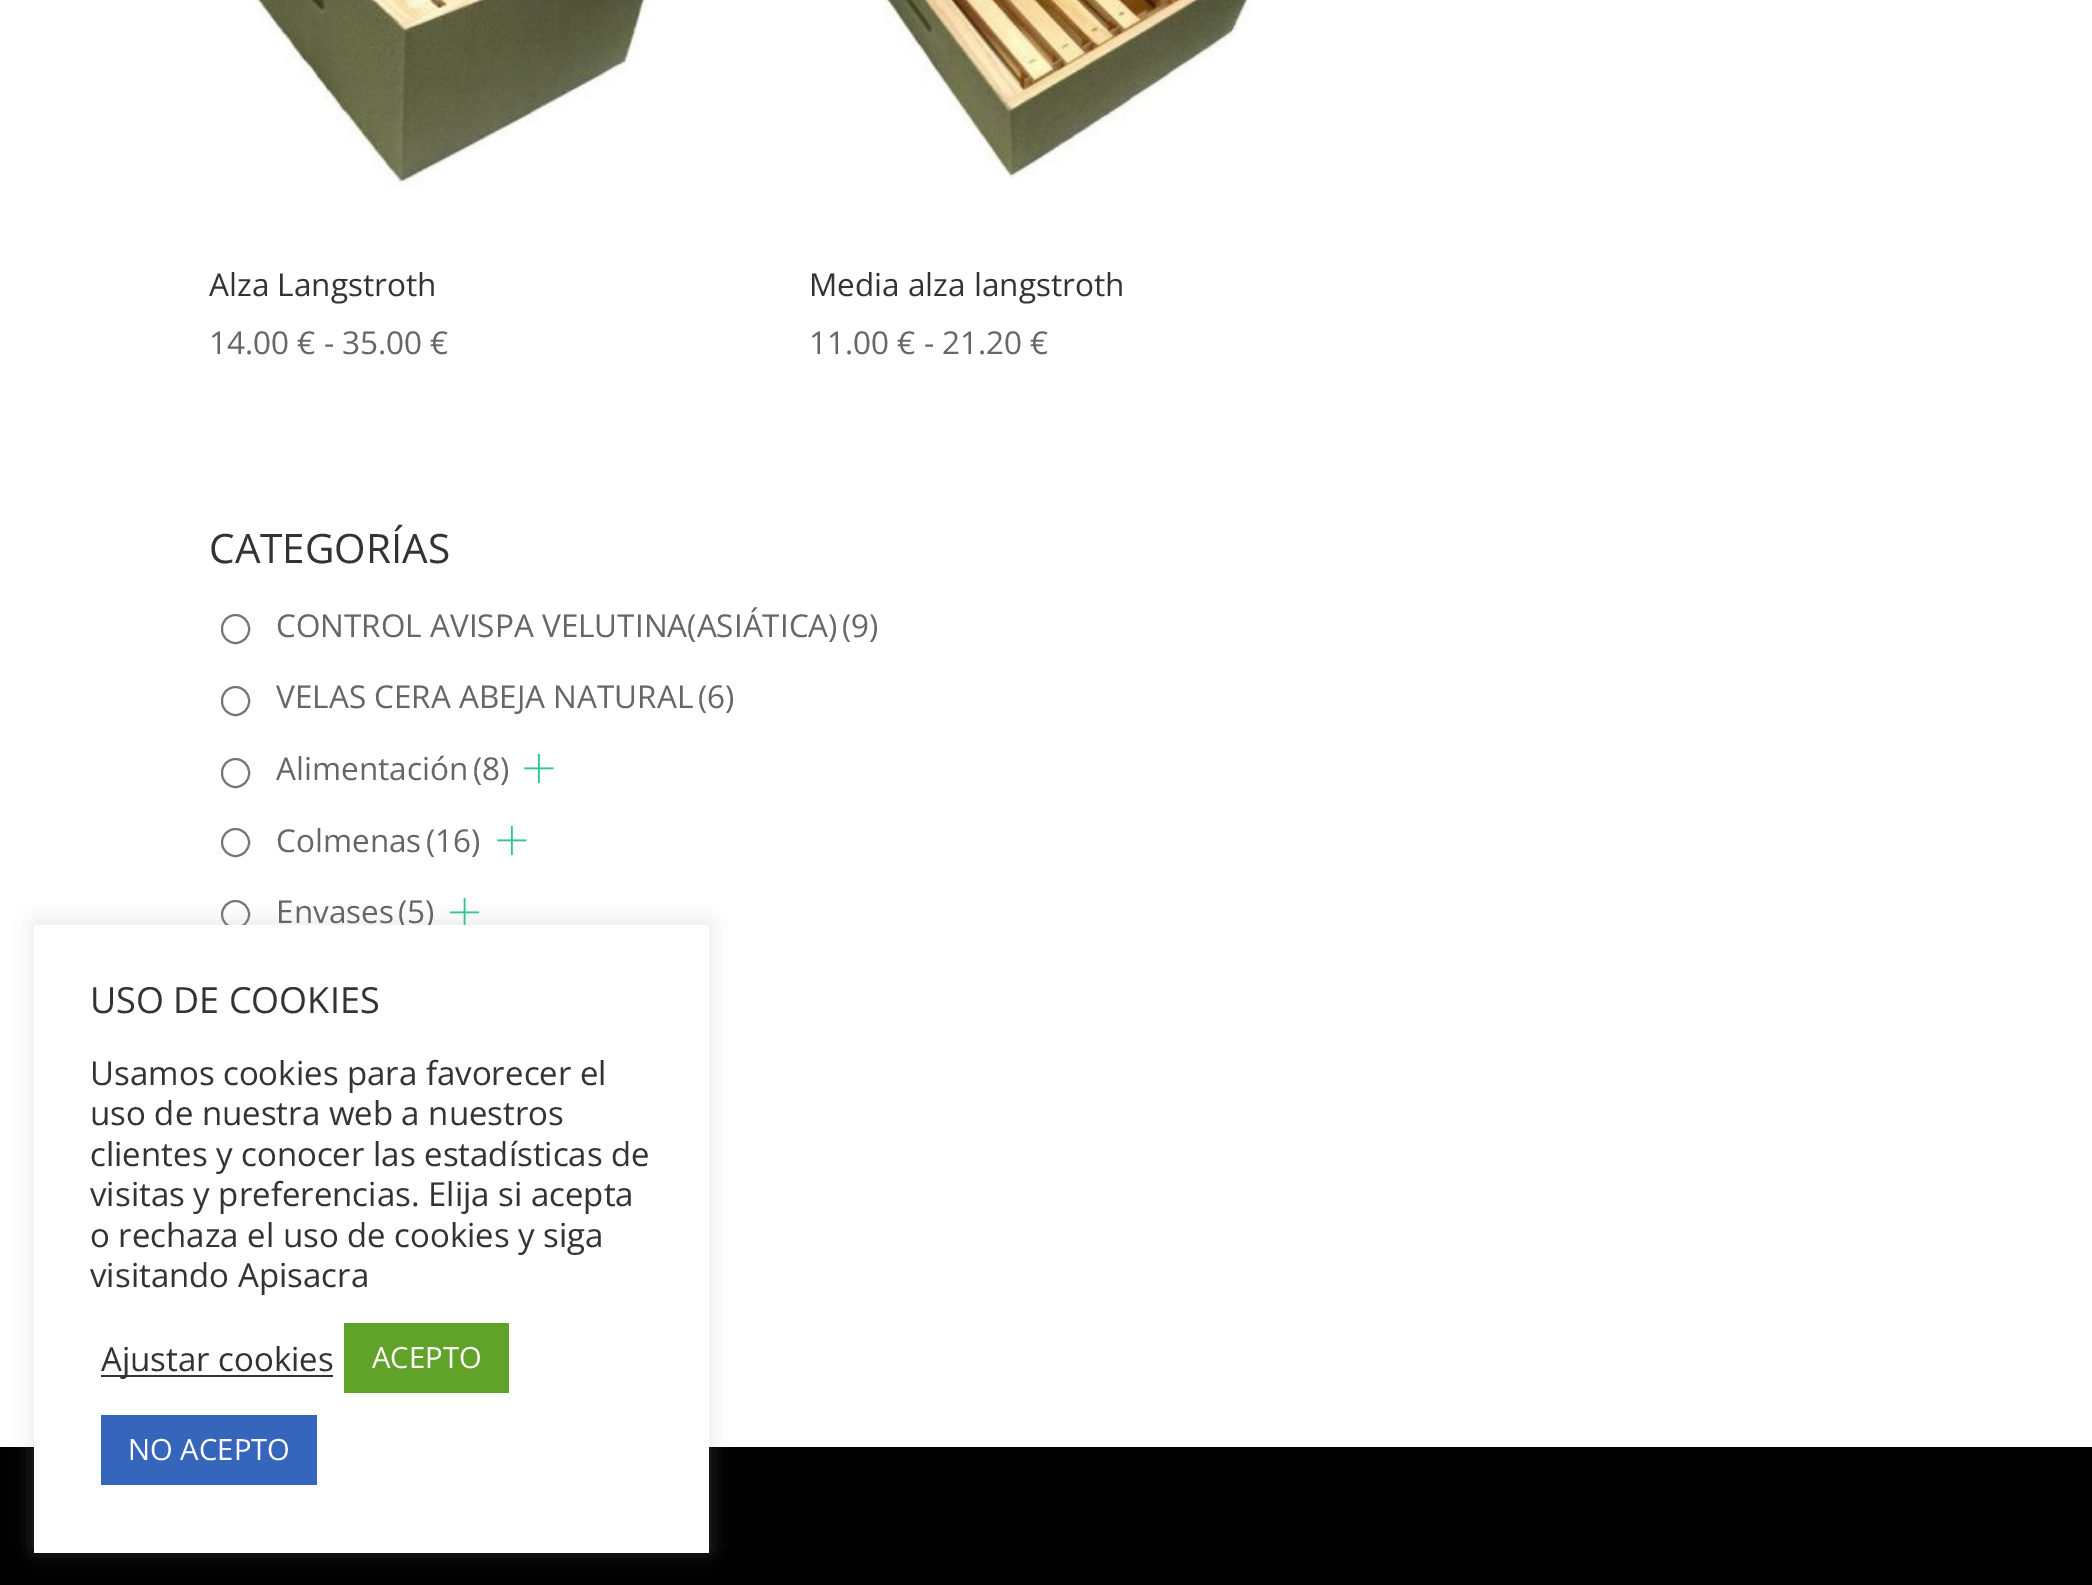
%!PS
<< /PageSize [2092 1585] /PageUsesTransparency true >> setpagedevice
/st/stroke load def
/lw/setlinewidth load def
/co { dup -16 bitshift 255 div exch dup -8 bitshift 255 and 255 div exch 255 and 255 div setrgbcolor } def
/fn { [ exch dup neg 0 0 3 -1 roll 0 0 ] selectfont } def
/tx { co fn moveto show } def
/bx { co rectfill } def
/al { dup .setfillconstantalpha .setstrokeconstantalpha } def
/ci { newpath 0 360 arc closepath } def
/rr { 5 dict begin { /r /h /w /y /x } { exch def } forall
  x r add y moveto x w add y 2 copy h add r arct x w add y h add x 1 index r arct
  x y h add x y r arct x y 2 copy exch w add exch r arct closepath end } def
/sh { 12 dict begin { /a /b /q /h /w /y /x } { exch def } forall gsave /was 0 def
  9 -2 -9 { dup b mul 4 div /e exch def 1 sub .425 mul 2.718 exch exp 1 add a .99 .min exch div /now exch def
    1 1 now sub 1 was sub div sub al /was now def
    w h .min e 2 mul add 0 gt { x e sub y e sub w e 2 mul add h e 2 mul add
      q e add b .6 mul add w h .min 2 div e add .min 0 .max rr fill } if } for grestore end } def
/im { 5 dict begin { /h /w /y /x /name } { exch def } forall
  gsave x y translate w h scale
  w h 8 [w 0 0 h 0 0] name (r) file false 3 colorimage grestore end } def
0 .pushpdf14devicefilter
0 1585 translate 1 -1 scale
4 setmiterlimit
0 0 2092 1585 16#FFFFFF bx
(media/1.raw) 248 0 402 187 im
(media/2.raw) 885 0 366 179 im
16#767676 co
2 lw
222 615 27 28 13.5 rr st
222 687 27 28 13.5 rr st
222 759 27 28 13.5 rr st
(media/3.raw) 524 754 30 29 im
235.5 842.5 13.5 ci st
(media/3.raw) 497 826 30 29 im
235.5 914.5 13.5 ci st
(media/4.raw) 450 898 29 27 im
0 1447 2092 138 16#000000 bx
16#ACABAB co
34 923 675 627 0 11 .3 sh
(Alza Langstroth) 209 296 /OpenSans-Regular 31.5 16#333333 tx
(14.00 € - 35.00 €) 209 354 /OpenSans-Regular 31.5 16#666666 tx
(Media alza langstroth) 809 296 /OpenSans-Regular 31.5 16#333333 tx
(11.00 € - 21.20 €) 809 354 /OpenSans-Regular 31.5 16#666666 tx
(CATEGORÍAS) 209 563 /OpenSans-Regular 40.5 16#333333 tx
(CONTROL AVISPA VELUTINA\(ASIÁTICA\)) 276 637 /OpenSans-Regular 31.5 16#666666 tx
(\(9\)) 842 637 /OpenSans-Regular 31.5 16#666666 tx
(VELAS CERA ABEJA NATURAL) 276 708 /OpenSans-Regular 31.5 16#666666 tx
(\(6\)) 698 708 /OpenSans-Regular 31.5 16#666666 tx
(Alimentación) 276 780 /OpenSans-Regular 31.5 16#666666 tx
(\(8\)) 473 780 /OpenSans-Regular 31.5 16#666666 tx
(Colmenas) 276 852 /OpenSans-Regular 31.5 16#666666 tx
(\(16\)) 426 852 /OpenSans-Regular 31.5 16#666666 tx
(Envases) 276 923 /OpenSans-Regular 31.5 16#666666 tx
(\(5\)) 398 923 /OpenSans-Regular 31.5 16#666666 tx
34 925 675 628 16#FFFFFF bx
(USO DE COOKIES) 90 1013 /OpenSans-Regular 36 16#333333 tx
(Usamos cookies para favorecer el) 90 1085 /OpenSans-Regular 33 16#333333 tx
(uso de nuestra web a nuestros) 90 1125 /OpenSans-Regular 33 16#333333 tx
(clientes y conocer las estadísticas de) 90 1166 /OpenSans-Regular 33 16#333333 tx
(visitas y preferencias. Elija si acepta) 90 1206 /OpenSans-Regular 33 16#333333 tx
(o rechaza el uso de cookies y siga) 90 1247 /OpenSans-Regular 33 16#333333 tx
(visitando Apisacra) 90 1287 /OpenSans-Regular 33 16#333333 tx
101 1375 232 2 16#333333 bx
(Ajustar cookies) 101 1371 /OpenSans-Regular 33 16#333333 tx
344 1323 165 70 16#61A229 bx
(ACEPTO) 372 1368 /OpenSans-Regular 29.25 16#FFFFFF tx
101 1415 216 70 16#3566BB bx
(NO ACEPTO) 128 1460 /OpenSans-Regular 29.25 16#FFFFFF tx
.poppdf14devicefilter showpage
